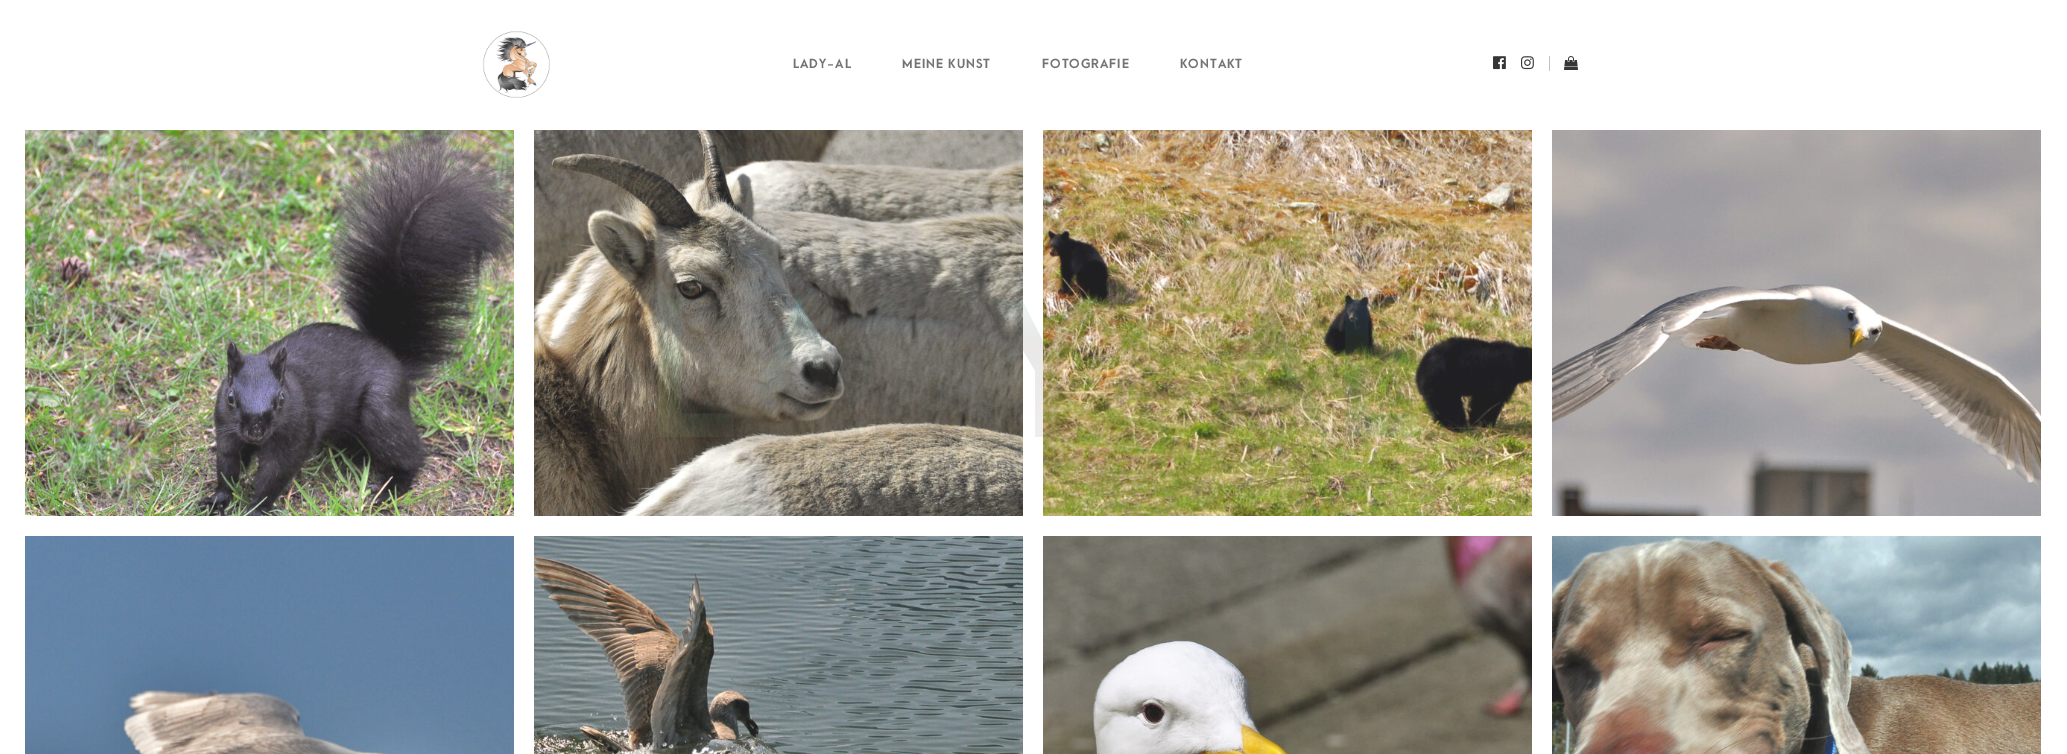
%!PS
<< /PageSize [2067 754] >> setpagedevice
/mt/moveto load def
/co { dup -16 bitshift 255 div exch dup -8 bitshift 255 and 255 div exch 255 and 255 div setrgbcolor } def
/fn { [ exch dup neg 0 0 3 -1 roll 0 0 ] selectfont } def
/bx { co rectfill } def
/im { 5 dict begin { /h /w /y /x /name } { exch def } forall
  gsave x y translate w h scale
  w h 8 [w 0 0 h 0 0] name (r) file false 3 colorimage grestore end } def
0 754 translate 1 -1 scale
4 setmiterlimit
0 0 2067 754 16#FFFFFF bx
(media/1.raw) 482 31 68 67 im
(media/2.raw) 1493 56 13 14 im
(media/3.raw) 1521 56 13 14 im
1549 56 1 15 16#C3C3C3 bx
(media/4.raw) 1564 56 14 14 im
(media/5.raw) 25 130 489 386 im
(media/6.raw) 534 130 489 386 im
(media/7.raw) 1043 130 489 386 im
(media/8.raw) 1552 130 489 386 im
(media/9.raw) 25 536 489 218 im
(media/10.raw) 534 536 489 218 im
(media/11.raw) 1043 536 489 218 im
(media/12.raw) 1552 536 489 218 im
(media/13.raw) 658 295 763 142 im
/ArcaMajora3-Bold 12 fn
16#727272 co
793 68 mt 1 0 (LADY-AL) ashow
902 68 mt 1 0 (MEINE KUNST) ashow
1042 68 mt 1 0 (FOTOGRAFIE) ashow
1180 68 mt 1 0 (KONTAKT) ashow
showpage
